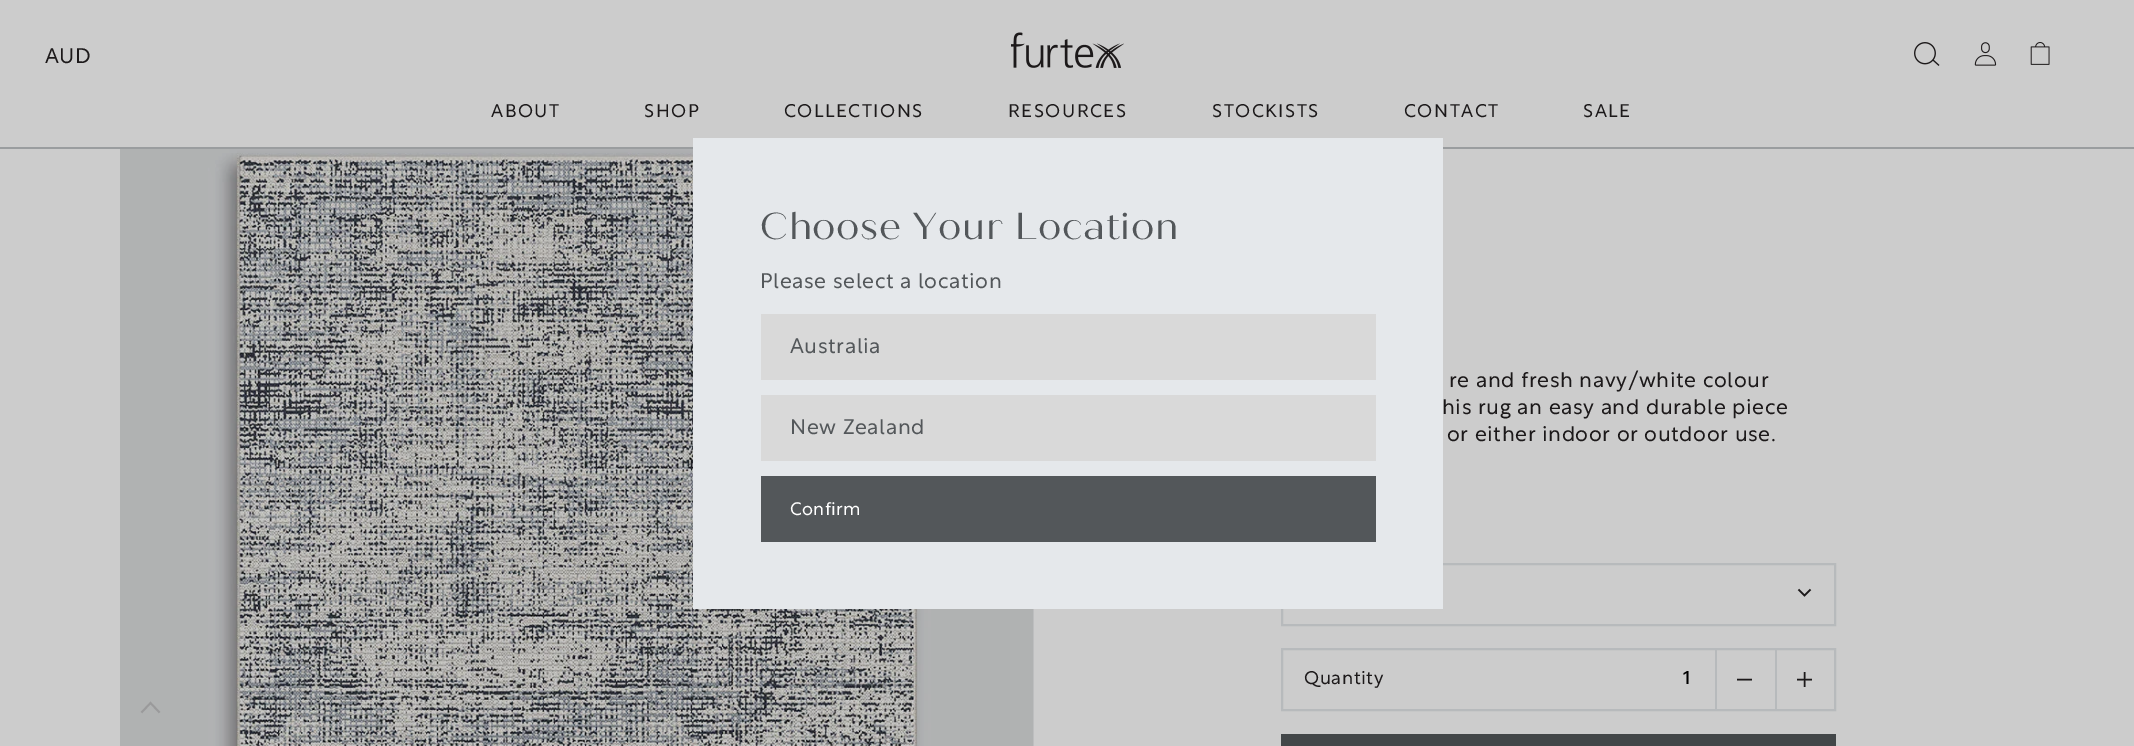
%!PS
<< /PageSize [2134 746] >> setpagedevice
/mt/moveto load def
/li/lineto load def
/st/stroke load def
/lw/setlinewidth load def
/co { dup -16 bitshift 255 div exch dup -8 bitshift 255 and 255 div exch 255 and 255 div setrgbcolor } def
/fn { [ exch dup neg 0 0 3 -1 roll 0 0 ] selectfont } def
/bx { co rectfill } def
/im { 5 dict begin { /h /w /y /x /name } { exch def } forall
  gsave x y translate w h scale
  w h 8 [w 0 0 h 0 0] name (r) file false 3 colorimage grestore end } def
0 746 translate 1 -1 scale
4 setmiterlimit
0 0 2134 746 16#CCCCCC bx
0 147 2134 2 16#9A9D9F bx
(media/1.raw) 1914 42 26 24 im
(media/2.raw) 1974 42 23 24 im
(media/3.raw) 2030 42 20 23 im
(media/4.raw) 1011 32 113 36 im
(media/5.raw) 120 149 914 597 im
16#9A9A9B co
1.8 lw
159.5 712.5 mt 150.5 703 li 141.5 712.5 li st
16#B7BABC co
2 lw
1282 564 553 61 rectstroke
16#1C191A co
1.5 lw
1798.5 589.5 mt 1804.5 595.5 li 1810.5 589.5 li st
16#B7BABC co
2 lw
1282 649 553 61 rectstroke
1715 650 2 60 16#B7BABC bx
16#1C191A co
1.5 lw
1752 679.5 mt 1737 679.5 li st
1775 650 2 60 16#B7BABC bx
16#1C191A co
1804.5 672 mt 1804.5 687 li 1812 679.5 mt 1797 679.5 li st
1281 734 555 12 16#424648 bx
693 138 750 471 16#E5E8EB bx
761 314 615 66 16#D9D9D9 bx
761 395 615 66 16#D9D9D9 bx
761 476 615 66 16#53575A bx
/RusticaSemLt-Light 21 fn
16#1C191A co
45 63 mt .6 0 (AUD) ashow
/RusticaSemLt-Light 18.25 fn
491 117 mt 1.5 0 (ABOUT) ashow
644 117 mt 1.5 0 (SHOP) ashow
784 117 mt 1.5 0 (COLLECTIONS) ashow
1008 117 mt 1.5 0 (RESOURCES) ashow
1212 117 mt 1.5 0 (STOCKISTS) ashow
1404 117 mt 1.5 0 (CONTACT) ashow
1583 117 mt 1.5 0 (SALE) ashow
/RusticaSemLt-Light 21 fn
1449 387 mt .6 0 (re and fresh navy/white colour) ashow
1442 414 mt .6 0 (his rug an easy and durable piece) ashow
1447 441 mt .6 0 (or either indoor or outdoor use.) ashow
/RusticaSemLt-Light 18.25 fn
1304 684 mt .6 0 (Quantity) ashow
/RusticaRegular-Regular 18.25 fn
16#000000 co
1683 684 mt 1.5 0 (1) ashow
/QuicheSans-Regular 37.5 fn
16#53575A co
760 239 mt .6 0 (Choose Your Location) ashow
/RusticaSemLt-Light 21 fn
760 288 mt .6 0 (Please select a location) ashow
790 353 mt .6 0 (Australia) ashow
790 434 mt .6 0 (New Zealand) ashow
/RusticaSemLt-Light 18 fn
16#FFFFFF co
790 515 mt .25 0 (Confirm) ashow
showpage
